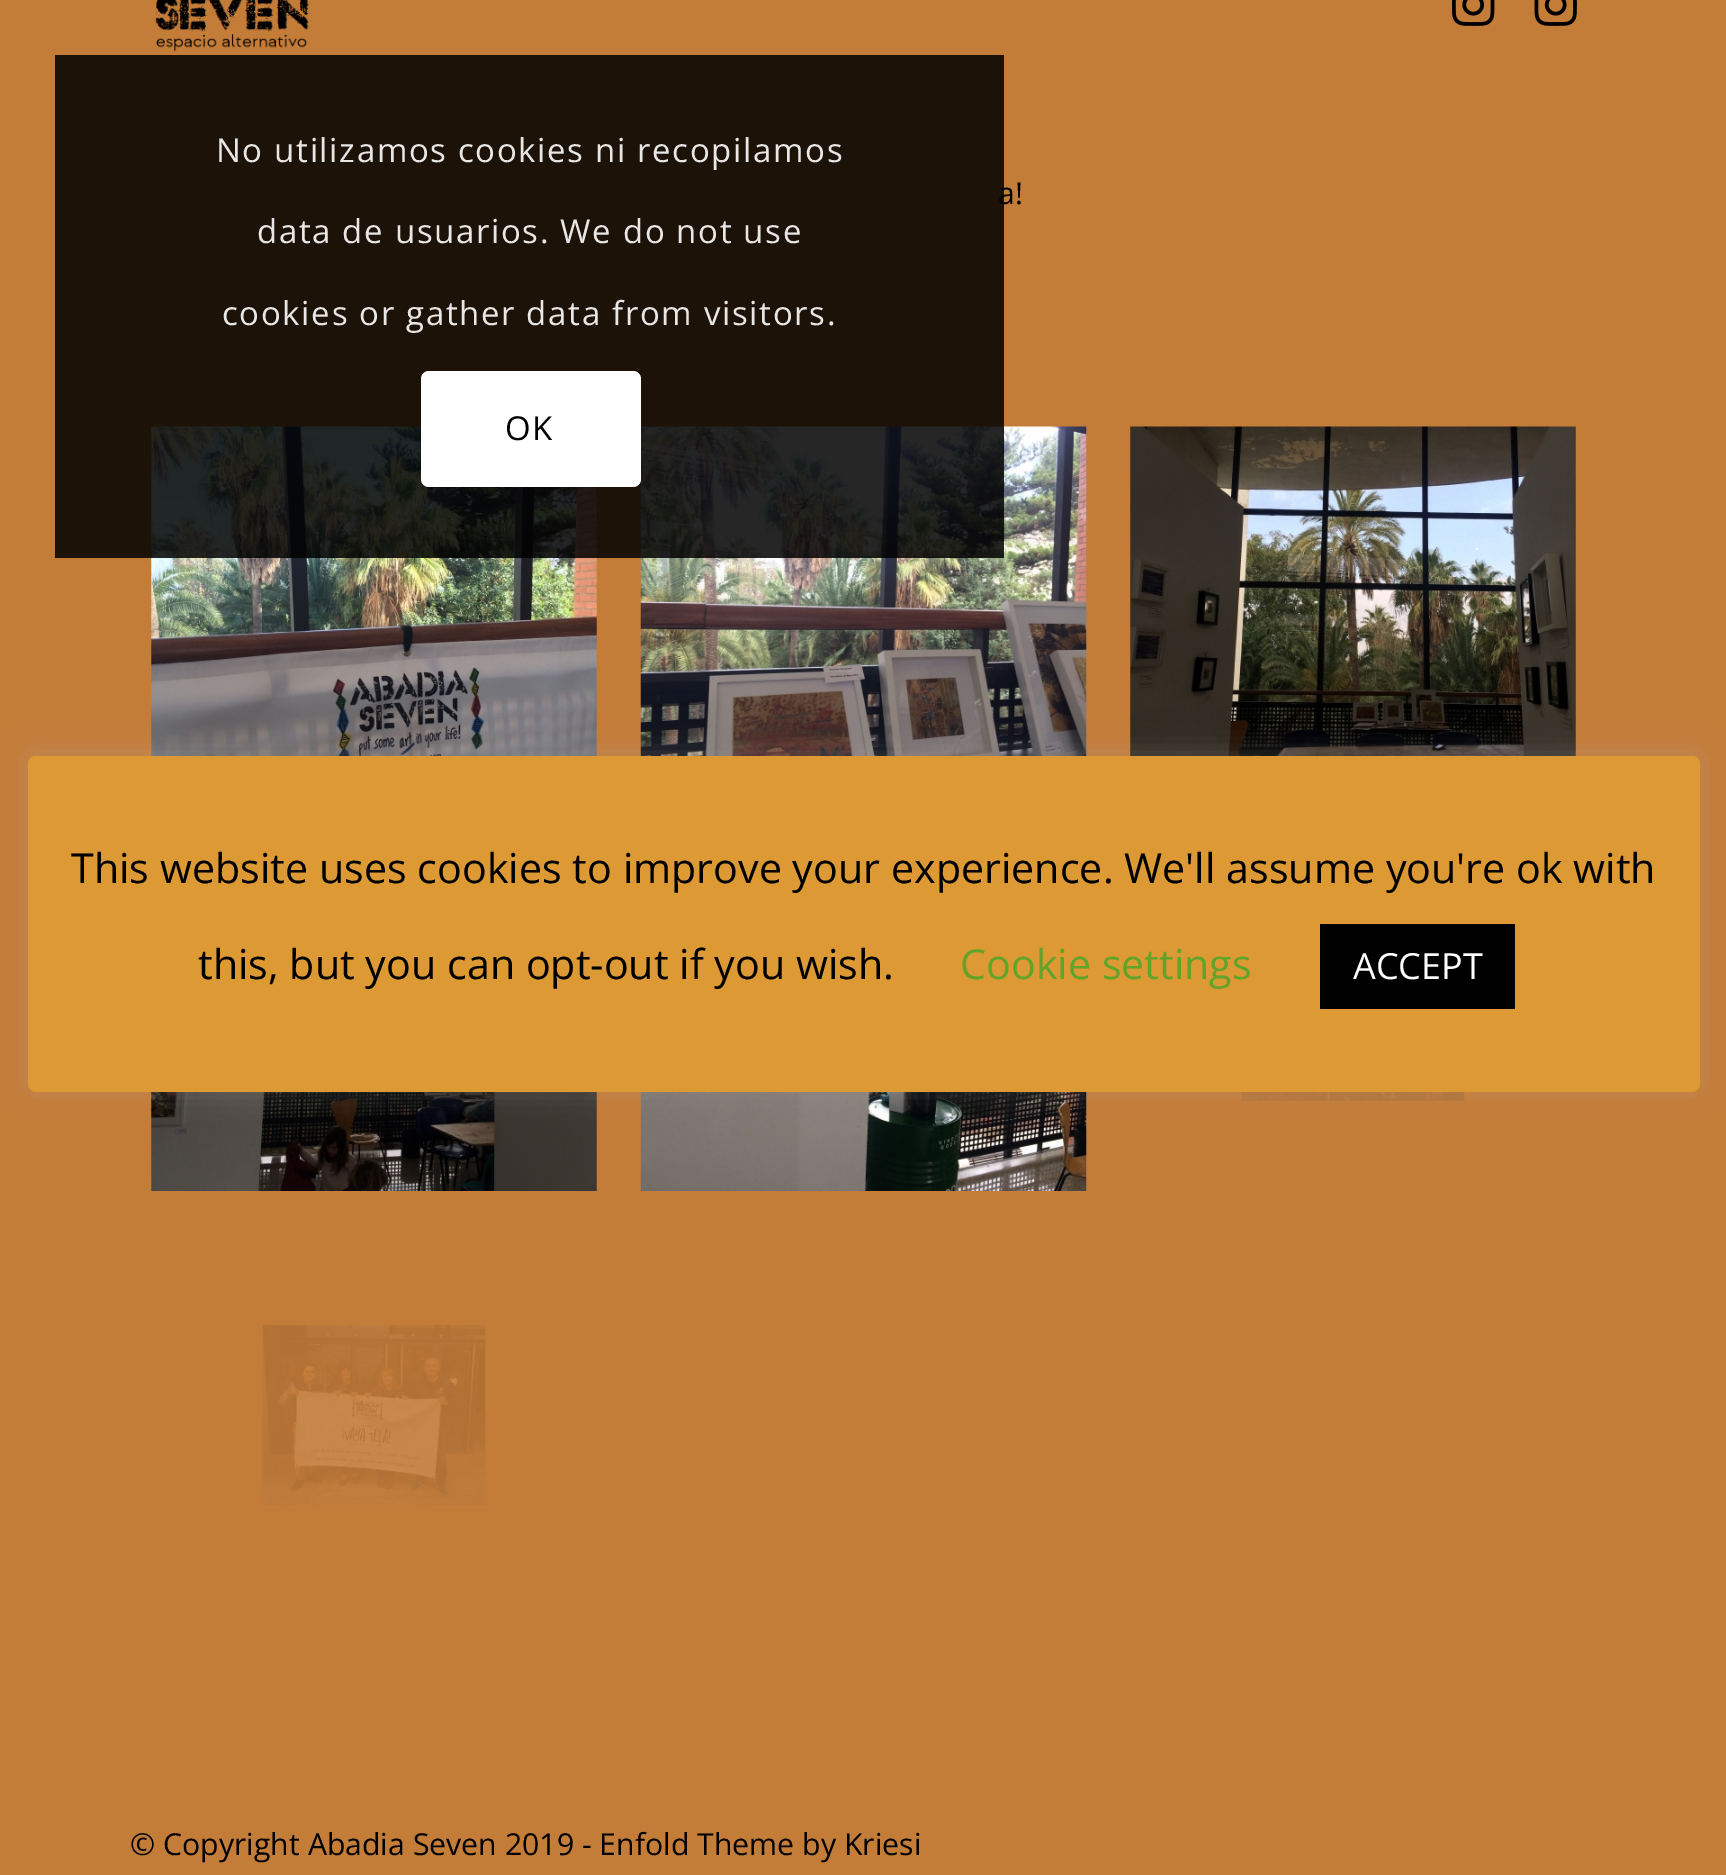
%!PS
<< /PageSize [1726 1875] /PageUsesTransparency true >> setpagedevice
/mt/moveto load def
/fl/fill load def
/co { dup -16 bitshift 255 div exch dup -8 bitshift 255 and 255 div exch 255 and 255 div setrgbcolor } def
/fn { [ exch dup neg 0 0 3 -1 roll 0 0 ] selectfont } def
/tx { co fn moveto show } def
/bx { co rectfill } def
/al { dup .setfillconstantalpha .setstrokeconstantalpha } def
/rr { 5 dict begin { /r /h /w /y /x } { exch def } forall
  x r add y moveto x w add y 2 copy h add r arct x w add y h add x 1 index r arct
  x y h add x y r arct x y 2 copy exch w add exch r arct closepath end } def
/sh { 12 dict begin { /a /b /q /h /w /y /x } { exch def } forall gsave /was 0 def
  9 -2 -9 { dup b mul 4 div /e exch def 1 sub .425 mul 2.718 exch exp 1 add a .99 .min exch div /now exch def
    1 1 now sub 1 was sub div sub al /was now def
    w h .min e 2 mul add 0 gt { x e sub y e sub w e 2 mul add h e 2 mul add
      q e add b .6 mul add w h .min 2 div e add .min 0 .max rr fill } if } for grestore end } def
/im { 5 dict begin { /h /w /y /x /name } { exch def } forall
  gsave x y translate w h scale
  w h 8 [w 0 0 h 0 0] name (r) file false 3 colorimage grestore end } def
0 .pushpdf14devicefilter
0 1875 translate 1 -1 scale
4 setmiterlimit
0 0 1726 1875 16#C47C39 bx
(media/1.raw) 155 0 155 52 im
(media/2.raw) 1452 0 43 26 im
(media/3.raw) 1534 0 43 26 im
(media/4.raw) 151 426 446 330 im
(media/5.raw) 640 426 447 330 im
(media/6.raw) 1130 426 446 330 im
(media/7.raw) 151 1092 446 99 im
(media/8.raw) 640 1092 447 99 im
(media/9.raw) 1241 1092 224 9 im
(media/10.raw) 262 1325 224 180 im
16#ACABAB co
28 754 1672 335 8 14 .3 sh
16#DD9933 co
28 756 1672 336 8 rr fl
1320 924 195 85 16#000000 bx
(a!) 998 204 /OpenSans-Regular 30.25 16#000000 tx
0.85 al
55 55 949 503 16#000000 bx
1 al
16#FFFFFF co
421 371 220 116 8 rr fl
/OpenSans-Regular 33 fn
16#000000 co
505 440 mt 1.65 0 (OK) ashow
16#E8E7E6 co
222 325 mt 1.65 0 (cookies or gather data from visitors.) ashow
257 243 mt 1.65 0 (data de usuarios. We do not use) ashow
216 162 mt 1.65 0 (No utilizamos cookies ni recopilamos) ashow
(© Copyright Abadia Seven 2019 - Enfold Theme by Kriesi) 130 1855 /OpenSans-Regular 30.25 16#000000 tx
(This website uses cookies to improve your experience. We'll assume you're ok with) 71 883 /OpenSans-Regular 41.25 16#000000 tx
(this, but you can opt-out if you wish.) 198 979 /OpenSans-Regular 41.25 16#000000 tx
(Cookie settings) 960 979 /OpenSans-Regular 41.25 16#62A329 tx
(ACCEPT) 1353 979 /OpenSans-Regular 36 16#FFFFFF tx
.poppdf14devicefilter showpage
